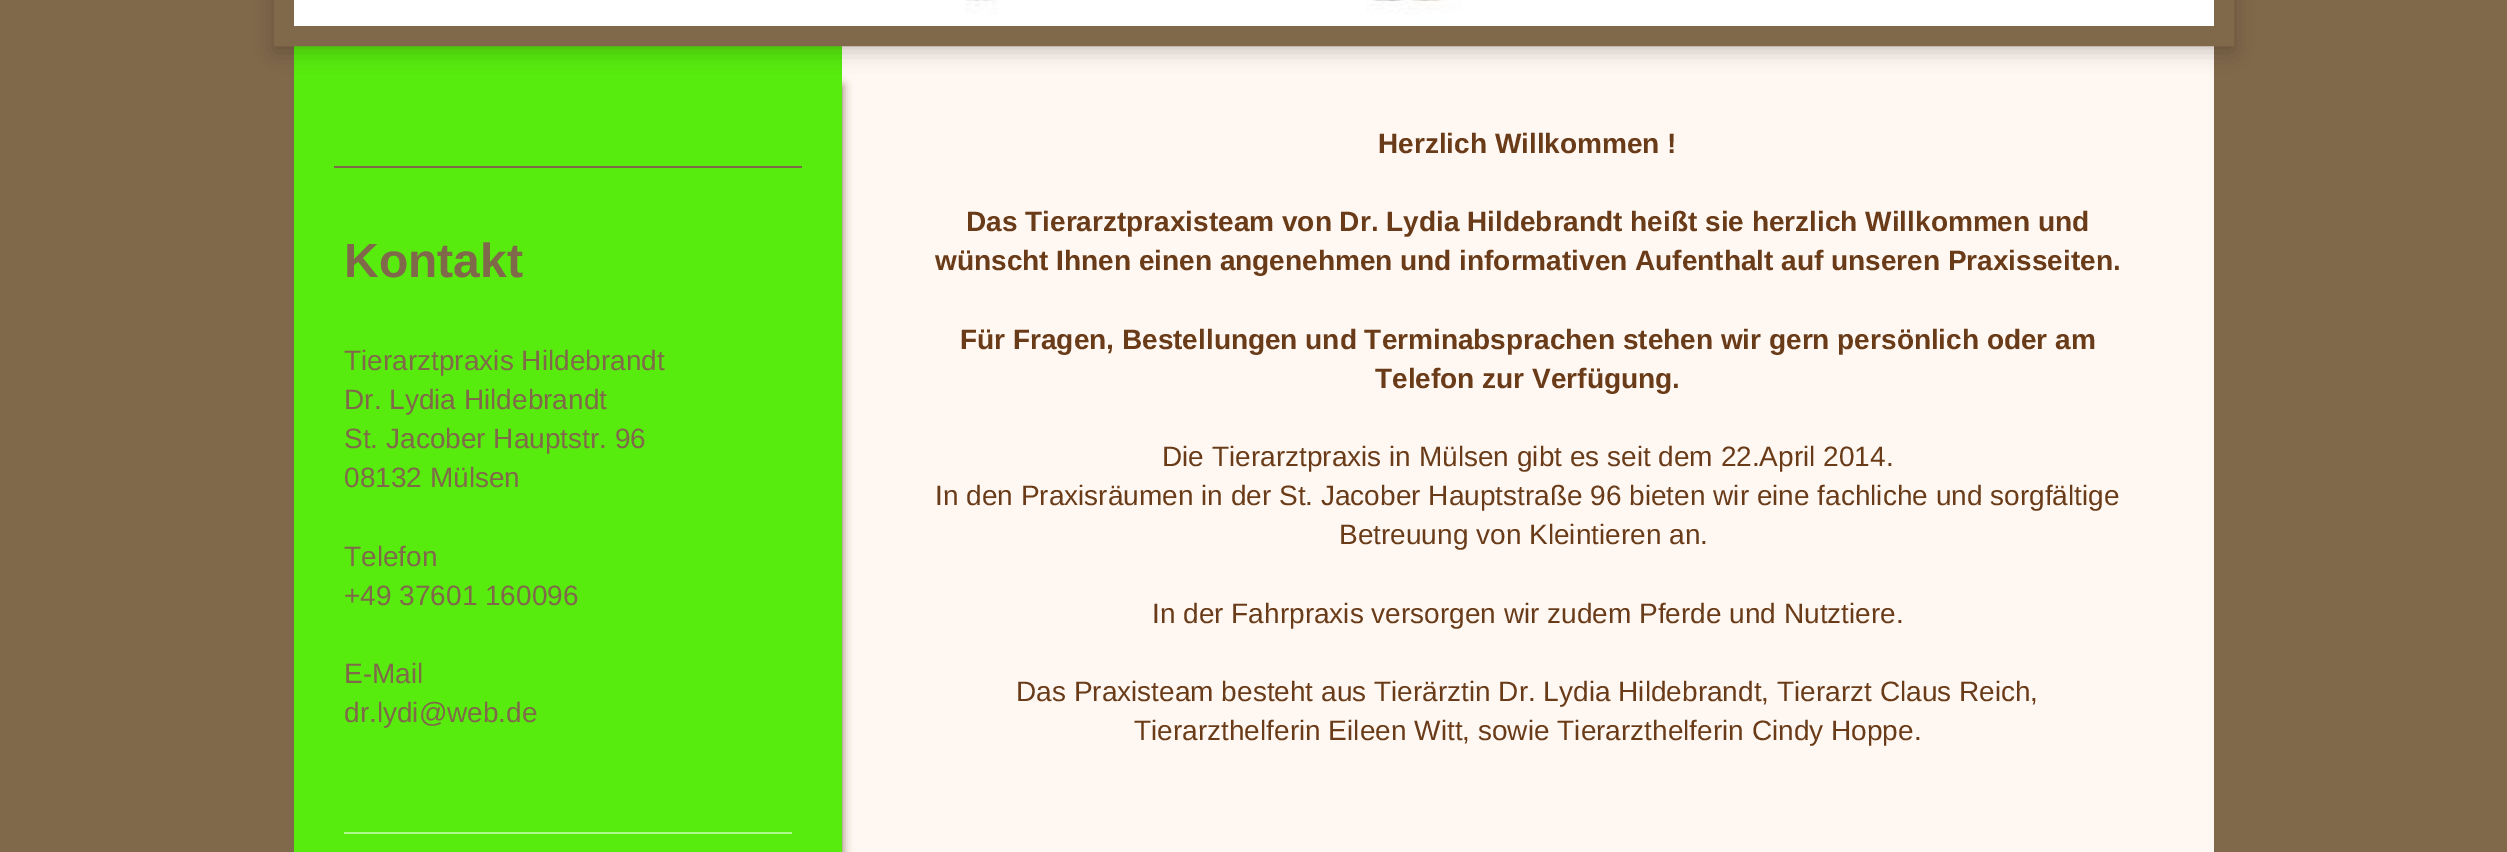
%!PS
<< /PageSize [2507 852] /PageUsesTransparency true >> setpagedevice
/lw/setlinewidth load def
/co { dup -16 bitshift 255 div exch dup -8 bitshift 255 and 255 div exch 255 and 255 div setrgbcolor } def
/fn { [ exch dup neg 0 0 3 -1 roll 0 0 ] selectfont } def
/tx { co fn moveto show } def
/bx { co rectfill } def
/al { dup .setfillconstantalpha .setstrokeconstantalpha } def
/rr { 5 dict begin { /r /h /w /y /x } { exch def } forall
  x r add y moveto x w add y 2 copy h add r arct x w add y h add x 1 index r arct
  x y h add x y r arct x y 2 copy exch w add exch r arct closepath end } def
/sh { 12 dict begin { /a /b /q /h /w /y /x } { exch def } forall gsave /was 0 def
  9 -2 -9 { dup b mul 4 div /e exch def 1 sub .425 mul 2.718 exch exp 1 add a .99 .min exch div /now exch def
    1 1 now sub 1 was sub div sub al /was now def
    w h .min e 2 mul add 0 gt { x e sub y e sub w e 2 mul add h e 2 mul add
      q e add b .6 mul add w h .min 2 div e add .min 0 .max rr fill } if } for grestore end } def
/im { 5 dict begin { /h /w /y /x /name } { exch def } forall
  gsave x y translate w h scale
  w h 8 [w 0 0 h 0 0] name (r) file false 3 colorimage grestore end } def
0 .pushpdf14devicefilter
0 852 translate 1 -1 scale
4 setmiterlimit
0 0 2507 852 16#80684B bx
842 46 1372 806 16#FFF7F1 bx
16#80684B co
374 86 468 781 0 5 1 sh
294 46 548 806 16#57EB0E bx
16#000000 co
274 -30 1960 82 0 10 .2 sh
16#80684B co
20 lw
284 -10 1940 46 rectstroke
(media/1.raw) 294 0 1920 26 im
334 166 468 2 16#80684B bx
344 832 448 2 16#AFF88B bx
(Herzlich Willkommen !) 1378 153 /LiberationSans-Bold 28 16#693B18 tx
(Das Tierarztpraxisteam von Dr. Lydia Hildebrandt heißt sie herzlich Willkommen und) 966 231 /LiberationSans-Bold 28 16#693B18 tx
(wünscht Ihnen einen angenehmen und informativen Aufenthalt auf unseren Praxisseiten.) 935 270 /LiberationSans-Bold 28 16#693B18 tx
(Für Fragen, Bestellungen und Terminabsprachen stehen wir gern persönlich oder am) 960 349 /LiberationSans-Bold 28 16#693B18 tx
(Telefon zur Verfügung.) 1375 388 /LiberationSans-Bold 28 16#693B18 tx
(Die Tierarztpraxis in Mülsen gibt es seit dem 22.April 2014.) 1162 466 /LiberationSans-Regular 28 16#693B18 tx
(In den Praxisräumen in der St. Jacober Hauptstraße 96 bieten wir eine fachliche und sorgfältige) 935 505 /LiberationSans-Regular 28 16#693B18 tx
(Betreuung von Kleintieren an.) 1339 544 /LiberationSans-Regular 28 16#693B18 tx
(In der Fahrpraxis versorgen wir zudem Pferde und Nutztiere.) 1152 623 /LiberationSans-Regular 28 16#693B18 tx
(Das Praxisteam besteht aus Tierärztin Dr. Lydia Hildebrandt, Tierarzt Claus Reich,) 1016 701 /LiberationSans-Regular 28 16#693B18 tx
(Tierarzthelferin Eileen Witt, sowie Tierarzthelferin Cindy Hoppe.) 1134 740 /LiberationSans-Regular 28 16#693B18 tx
(Kontakt) 344 277 /LiberationSans-Bold 48 16#80684B tx
(Tierarztpraxis Hildebrandt) 344 370 /LiberationSans-Regular 28 16#80684B tx
(Dr. Lydia Hildebrandt) 344 409 /LiberationSans-Regular 28 16#80684B tx
(St. Jacober Hauptstr. 96) 344 448 /LiberationSans-Regular 28 16#80684B tx
(08132 Mülsen) 344 487 /LiberationSans-Regular 28 16#80684B tx
(Telefon) 344 566 /LiberationSans-Regular 28 16#80684B tx
(+49 37601 160096) 344 605 /LiberationSans-Regular 28 16#80684B tx
(E-Mail) 344 683 /LiberationSans-Regular 28 16#80684B tx
(dr.lydi@web.de) 344 722 /LiberationSans-Regular 28 16#80684B tx
.poppdf14devicefilter showpage
